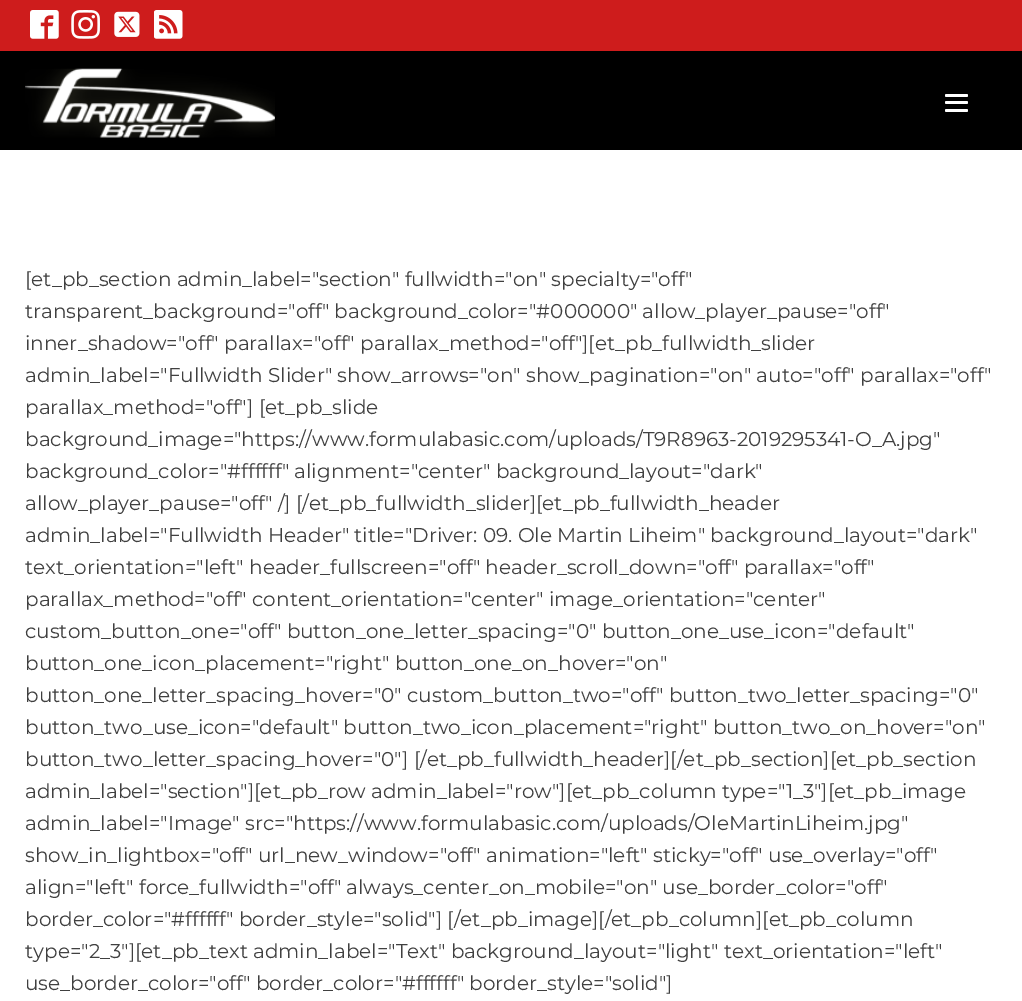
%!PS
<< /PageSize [1022 1001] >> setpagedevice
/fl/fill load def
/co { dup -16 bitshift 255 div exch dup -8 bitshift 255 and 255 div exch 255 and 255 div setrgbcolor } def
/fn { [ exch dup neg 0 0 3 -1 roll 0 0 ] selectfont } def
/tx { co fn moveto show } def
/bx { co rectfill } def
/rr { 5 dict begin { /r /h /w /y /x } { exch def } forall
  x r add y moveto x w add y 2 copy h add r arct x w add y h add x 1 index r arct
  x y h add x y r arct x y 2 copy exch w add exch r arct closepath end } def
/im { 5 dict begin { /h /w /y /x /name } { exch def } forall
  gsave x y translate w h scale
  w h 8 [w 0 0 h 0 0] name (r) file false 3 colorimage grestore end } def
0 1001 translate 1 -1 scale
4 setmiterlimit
0 0 1022 1001 16#FFFFFF bx
0 0 1022 51 16#CE1C1C bx
(media/1.raw) 30 10 29 29 im
(media/2.raw) 71 10 29 29 im
(media/3.raw) 114 11 26 26 im
(media/4.raw) 154 10 29 29 im
0 51 1022 99 16#000000 bx
(media/5.raw) 25 68 250 70 im
16#FFFFFF co
945 94 23 3 1.5 rr fl
945 101 23 3 1.5 rr fl
945 109 23 3 1.5 rr fl
([et_pb_section admin_label="section" fullwidth="on" specialty="off") 25 286 /Montserrat-Regular 20 16#404040 tx
(transparent_background="off" background_color="#000000" allow_player_pause="off") 25 318 /Montserrat-Regular 20 16#404040 tx
(inner_shadow="off" parallax="off" parallax_method="off"][et_pb_fullwidth_slider) 25 350 /Montserrat-Regular 20 16#404040 tx
(admin_label="Fullwidth Slider" show_arrows="on" show_pagination="on" auto="off" parallax="off") 25 382 /Montserrat-Regular 20 16#404040 tx
(parallax_method="off"] [et_pb_slide) 25 414 /Montserrat-Regular 20 16#404040 tx
(background_image="https://www.formulabasic.com/uploads/T9R8963-2019295341-O_A.jpg") 25 446 /Montserrat-Regular 20 16#404040 tx
(background_color="#ffffff" alignment="center" background_layout="dark") 25 478 /Montserrat-Regular 20 16#404040 tx
(allow_player_pause="off" /] [/et_pb_fullwidth_slider][et_pb_fullwidth_header) 25 510 /Montserrat-Regular 20 16#404040 tx
(admin_label="Fullwidth Header" title="Driver: 09. Ole Martin Liheim" background_layout="dark") 25 542 /Montserrat-Regular 20 16#404040 tx
(text_orientation="left" header_fullscreen="off" header_scroll_down="off" parallax="off") 25 574 /Montserrat-Regular 20 16#404040 tx
(parallax_method="off" content_orientation="center" image_orientation="center") 25 606 /Montserrat-Regular 20 16#404040 tx
(custom_button_one="off" button_one_letter_spacing="0" button_one_use_icon="default") 25 638 /Montserrat-Regular 20 16#404040 tx
(button_one_icon_placement="right" button_one_on_hover="on") 25 670 /Montserrat-Regular 20 16#404040 tx
(button_one_letter_spacing_hover="0" custom_button_two="off" button_two_letter_spacing="0") 25 702 /Montserrat-Regular 20 16#404040 tx
(button_two_use_icon="default" button_two_icon_placement="right" button_two_on_hover="on") 25 734 /Montserrat-Regular 20 16#404040 tx
(button_two_letter_spacing_hover="0"] [/et_pb_fullwidth_header][/et_pb_section][et_pb_section) 25 766 /Montserrat-Regular 20 16#404040 tx
(admin_label="section"][et_pb_row admin_label="row"][et_pb_column type="1_3"][et_pb_image) 25 798 /Montserrat-Regular 20 16#404040 tx
(admin_label="Image" src="https://www.formulabasic.com/uploads/OleMartinLiheim.jpg") 25 830 /Montserrat-Regular 20 16#404040 tx
(show_in_lightbox="off" url_new_window="off" animation="left" sticky="off" use_overlay="off") 25 862 /Montserrat-Regular 20 16#404040 tx
(align="left" force_fullwidth="off" always_center_on_mobile="on" use_border_color="off") 25 894 /Montserrat-Regular 20 16#404040 tx
(border_color="#ffffff" border_style="solid"] [/et_pb_image][/et_pb_column][et_pb_column) 25 926 /Montserrat-Regular 20 16#404040 tx
(type="2_3"][et_pb_text admin_label="Text" background_layout="light" text_orientation="left") 25 958 /Montserrat-Regular 20 16#404040 tx
(use_border_color="off" border_color="#ffffff" border_style="solid"]) 25 990 /Montserrat-Regular 20 16#404040 tx
showpage
